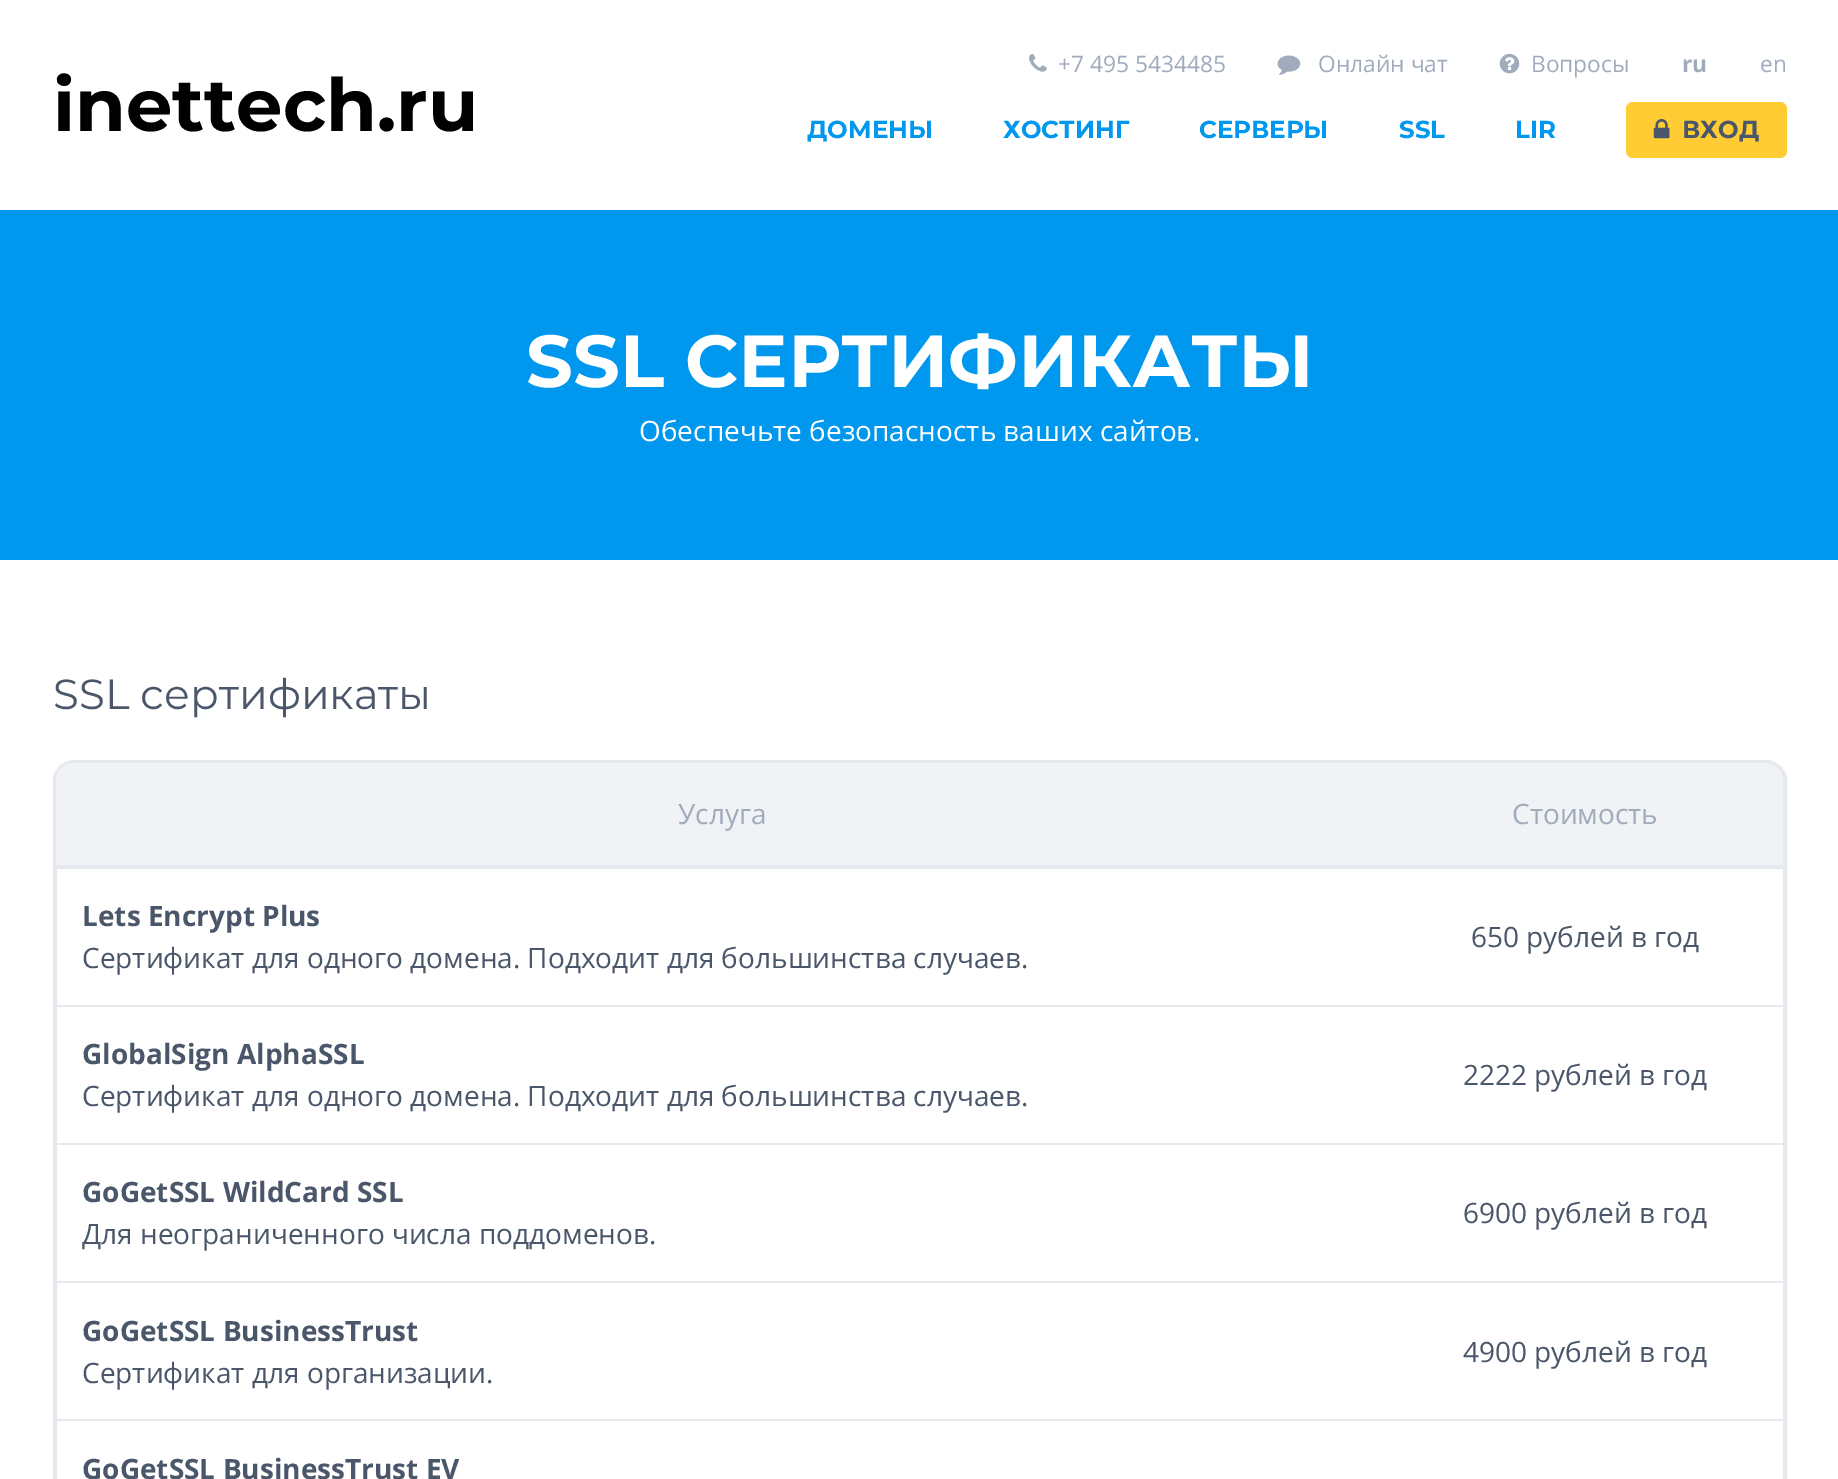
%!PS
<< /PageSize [1838 1479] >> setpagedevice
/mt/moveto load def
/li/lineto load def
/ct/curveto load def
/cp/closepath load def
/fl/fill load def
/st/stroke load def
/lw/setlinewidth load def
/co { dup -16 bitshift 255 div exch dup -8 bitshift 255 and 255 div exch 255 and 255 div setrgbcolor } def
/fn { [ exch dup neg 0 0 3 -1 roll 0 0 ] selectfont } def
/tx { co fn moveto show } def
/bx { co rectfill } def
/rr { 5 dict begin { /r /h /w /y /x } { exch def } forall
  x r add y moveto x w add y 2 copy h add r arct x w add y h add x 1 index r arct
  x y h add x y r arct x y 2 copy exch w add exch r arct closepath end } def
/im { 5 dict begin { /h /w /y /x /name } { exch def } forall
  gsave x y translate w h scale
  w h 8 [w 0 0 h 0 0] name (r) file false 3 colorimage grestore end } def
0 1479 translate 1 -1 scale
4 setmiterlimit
0 0 1838 1479 16#0098EF bx
0 0 1838 210 16#FFFFFF bx
(media/1.raw) 1029 53 18 19 im
(media/2.raw) 1277 55 24 20 im
(media/3.raw) 1499 53 21 21 im
16#FFCC33 co
1626 102 161 56 7 rr fl
(media/4.raw) 1653 119 17 20 im
0 560 1838 919 16#FFFFFF bx
16#E6E9EE co
4 lw
55 762 1730 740 19 rr st
16#F0F2F5 co
74 763 mt 1388 763 li 1388 868 li 56 868 li 56 781 li 56 771 64 763 74 763 ct cp fl
56 865 1332 4 16#E6E9EE bx
16#F0F2F5 co
1388 763 mt 1765 763 li 1775 763 1783 771 1783 781 ct 1783 868 li 1388 868 li cp fl
1388 865 395 4 16#E6E9EE bx
56 1005 1727 2 16#E6E9EE bx
56 1143 1727 2 16#E6E9EE bx
56 1281 1727 2 16#E6E9EE bx
56 1419 1727 2 16#E6E9EE bx
(inettech.ru) 53 131 /Montserrat-Bold 73.5 16#000000 tx
(+7 495 5434485) 1058 72 /OpenSans-Regular 22.75 16#A0ABBC tx
(Онлайн чат) 1318 72 /OpenSans-Regular 22.75 16#A0ABBC tx
(Вопросы) 1531 72 /OpenSans-Regular 22.75 16#A0ABBC tx
(ru) 1682 72 /OpenSans-Bold 22.75 16#A0ABBC tx
(en) 1760 72 /OpenSans-Regular 22.75 16#A0ABBC tx
(ДОМЕНЫ) 807 138 /Montserrat-Bold 24.5 16#0098EF tx
(ХОСТИНГ) 1003 138 /Montserrat-Bold 24.5 16#0098EF tx
(СЕРВЕРЫ) 1199 138 /Montserrat-Bold 24.5 16#0098EF tx
(SSL) 1399 138 /Montserrat-Bold 24.5 16#0098EF tx
(LIR) 1515 138 /Montserrat-Bold 24.5 16#0098EF tx
(ВХОД) 1682 138 /Montserrat-Bold 24.5 16#4A5669 tx
(SSL СЕРТИФИКАТЫ) 526 387 /Montserrat-Bold 73.5 16#FFFFFF tx
(Обеспечьте безопасность ваших сайтов.) 639 441 /OpenSans-Regular 28 16#FFFFFF tx
(SSL сертификаты) 53 709 /Montserrat-Regular 42 16#4A5669 tx
(Услуга) 678 824 /OpenSans-Regular 28 16#A0ABBC tx
(Стоимость) 1512 824 /OpenSans-Regular 28 16#A0ABBC tx
(Lets Encrypt Plus) 82 926 /OpenSans-Bold 28 16#4A5669 tx
(Сертификат для одного домена. Подходит для большинства случаев.) 82 968 /OpenSans-Regular 28 16#4A5669 tx
(650 рублей в год) 1471 947 /OpenSans-Regular 28 16#4A5669 tx
(GlobalSign AlphaSSL) 82 1064 /OpenSans-Bold 28 16#4A5669 tx
(Сертификат для одного домена. Подходит для большинства случаев.) 82 1106 /OpenSans-Regular 28 16#4A5669 tx
(2222 рублей в год) 1463 1085 /OpenSans-Regular 28 16#4A5669 tx
(GoGetSSL WildCard SSL) 82 1202 /OpenSans-Bold 28 16#4A5669 tx
(Для неограниченного числа поддоменов.) 82 1244 /OpenSans-Regular 28 16#4A5669 tx
(6900 рублей в год) 1463 1223 /OpenSans-Regular 28 16#4A5669 tx
(GoGetSSL BusinessTrust) 82 1341 /OpenSans-Bold 28 16#4A5669 tx
(Сертификат для организации.) 82 1383 /OpenSans-Regular 28 16#4A5669 tx
(4900 рублей в год) 1463 1362 /OpenSans-Regular 28 16#4A5669 tx
(GoGetSSL BusinessTrust EV) 82 1479 /OpenSans-Bold 28 16#4A5669 tx
showpage
